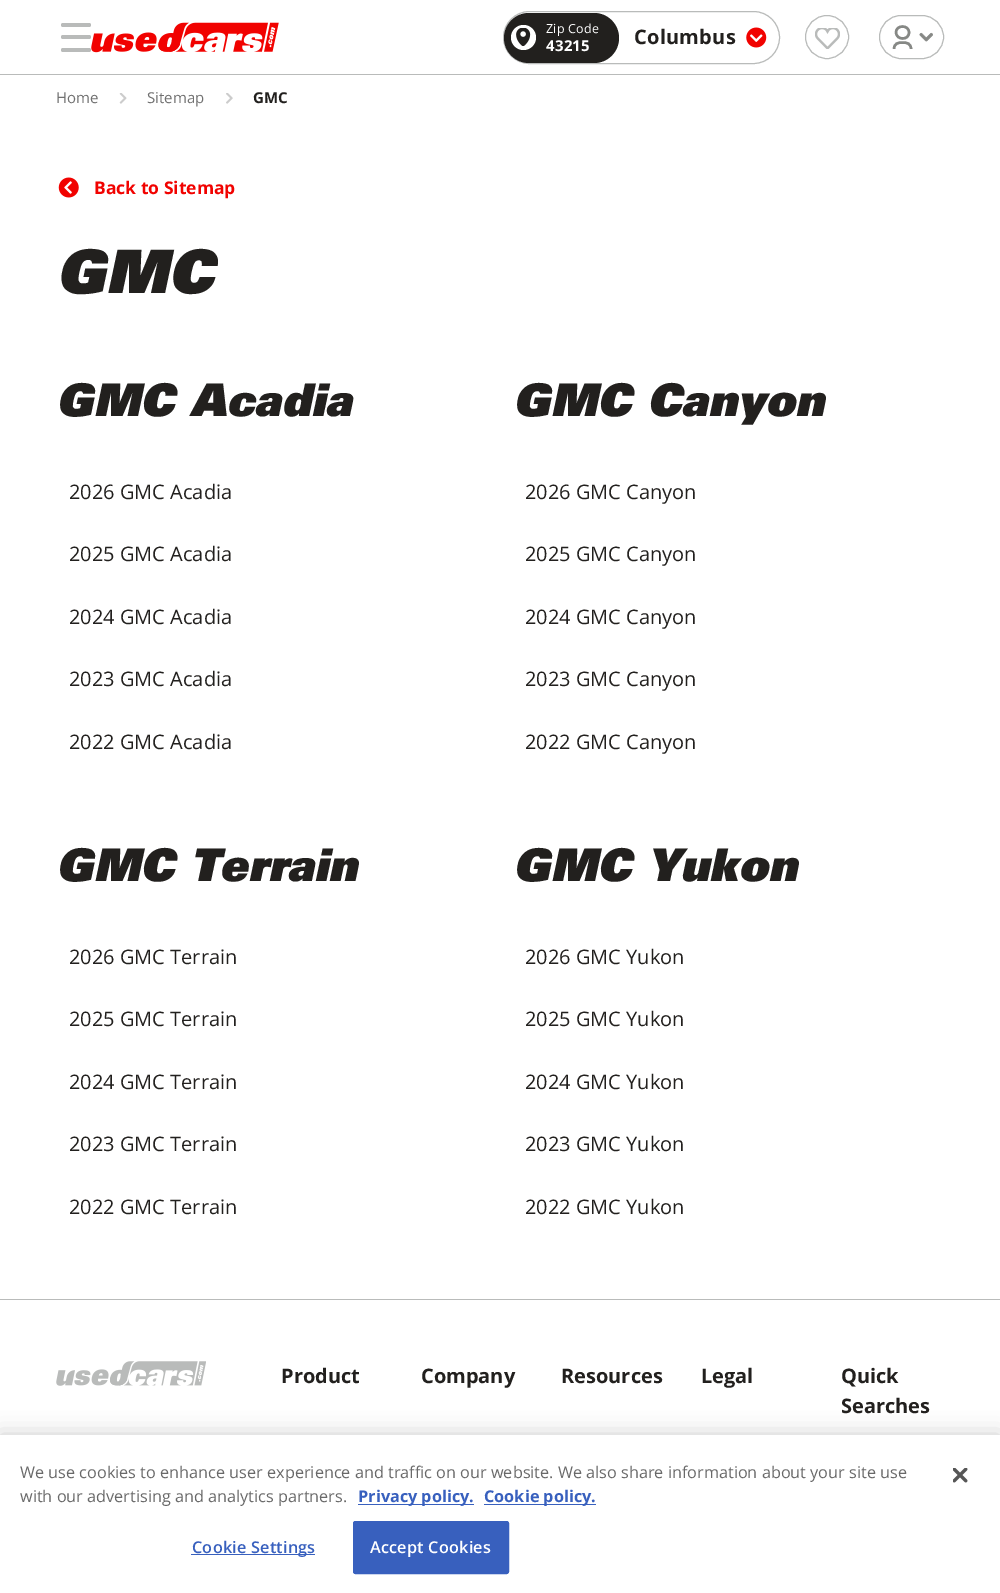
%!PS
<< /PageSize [1000 1593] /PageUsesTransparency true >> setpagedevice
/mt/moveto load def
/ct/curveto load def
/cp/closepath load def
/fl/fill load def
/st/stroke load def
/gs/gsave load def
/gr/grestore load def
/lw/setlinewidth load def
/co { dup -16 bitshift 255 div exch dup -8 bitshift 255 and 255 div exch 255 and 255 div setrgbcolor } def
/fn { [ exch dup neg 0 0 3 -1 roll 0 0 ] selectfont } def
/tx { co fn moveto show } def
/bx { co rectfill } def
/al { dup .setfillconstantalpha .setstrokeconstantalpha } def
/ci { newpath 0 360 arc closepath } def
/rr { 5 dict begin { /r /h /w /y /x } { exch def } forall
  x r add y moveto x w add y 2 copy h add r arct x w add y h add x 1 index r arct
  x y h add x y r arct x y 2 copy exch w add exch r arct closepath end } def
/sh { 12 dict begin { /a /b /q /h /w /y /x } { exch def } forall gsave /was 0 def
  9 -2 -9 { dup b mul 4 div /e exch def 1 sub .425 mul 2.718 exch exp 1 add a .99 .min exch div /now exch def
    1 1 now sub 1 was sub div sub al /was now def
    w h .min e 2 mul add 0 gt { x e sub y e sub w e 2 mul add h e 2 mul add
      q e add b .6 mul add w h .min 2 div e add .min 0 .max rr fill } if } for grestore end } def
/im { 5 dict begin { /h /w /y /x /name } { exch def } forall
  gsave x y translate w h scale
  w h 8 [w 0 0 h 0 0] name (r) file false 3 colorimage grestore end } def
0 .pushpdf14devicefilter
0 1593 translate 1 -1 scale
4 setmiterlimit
0 0 1000 1593 16#FFFFFF bx
0 74 1000 1 16#B9BBBA bx
61 23 30 4 2 rr fl
61 35 30 4 2 rr fl
61 48 30 4 2 rr fl
(media/1.raw) 91 22 188 31 im
503.5 11.5 276 52 26 rr st
16#22201E co
504 13 115 50 25 rr fl
16#FFFFFF co
523.5 37.5 12.5 ci fl
(media/2.raw) 516 28 15 18 im
(media/3.raw) 746 27 21 21 im
16#B9BBBA co
827 37 21.5 ci st
(media/4.raw) 815 28 25 21 im
879.5 15.5 64 43 21.5 rr st
16#868885 co
2.5 lw
911 49 mt 911 43.5 907 42.5 902.5 42.5 ct 898 42.5 894 43.5 894 49 ct 909 32.5 mt 909 40.5 896.5 40.5 896 32.5 ct 896 24.5 909 24.5 909 32.5 ct cp st
(media/5.raw) 919 32 14 10 im
(media/6.raw) 119 93 8 11 im
(media/7.raw) 226 93 7 11 im
(media/8.raw) 58 177 21 21 im
0 1299 1000 1 16#B9BBBA bx
(media/9.raw) 56 1361 150 25 im
16#000000 co
0 1435 1000 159 0 11 .2 sh
0 1435 1000 158 16#FFFFFF bx
358 1504 116 1 16#3860BE bx
484 1504 112 1 16#3860BE bx
191 1554 124 1 16#3860BE bx
353.5 1521.5 155 52 2 rr gs fl gr
1 lw
st
(media/10.raw) 953 1468 15 15 im
/OpenSans-Regular 12.5 fn
16#FFFFFF co
546 33 mt .25 0 (Zip Code) ashow
/OpenSans-Bold 15 fn
546 51 mt .25 0 (43215) ashow
/OpenSans-Bold 20 fn
16#22201E co
634 44 mt .25 0 (Columbus) ashow
(Home) 56 103 /OpenSans-Regular 15 16#707070 tx
(Sitemap) 147 103 /OpenSans-Regular 15 16#707070 tx
(GMC) 253 103 /OpenSans-Bold 15 16#22201E tx
(Back to Sitemap) 94 194 /OpenSans-Bold 17.5 16#F10200 tx
(GMC) 56 293 /Univers-BlackItalic 60 16#22201E tx
(GMC Acadia) 56 416 /Univers-BlackItalic 45 16#22201E tx
(2026 GMC Acadia) 69 499 /OpenSans-Regular 20 16#22201E tx
(2025 GMC Acadia) 69 561 /OpenSans-Regular 20 16#22201E tx
(2024 GMC Acadia) 69 624 /OpenSans-Regular 20 16#22201E tx
(2023 GMC Acadia) 69 686 /OpenSans-Regular 20 16#22201E tx
(2022 GMC Acadia) 69 749 /OpenSans-Regular 20 16#22201E tx
(GMC Canyon) 513 416 /Univers-BlackItalic 45 16#22201E tx
(2026 GMC Canyon) 525 499 /OpenSans-Regular 20 16#22201E tx
(2025 GMC Canyon) 525 561 /OpenSans-Regular 20 16#22201E tx
(2024 GMC Canyon) 525 624 /OpenSans-Regular 20 16#22201E tx
(2023 GMC Canyon) 525 686 /OpenSans-Regular 20 16#22201E tx
(2022 GMC Canyon) 525 749 /OpenSans-Regular 20 16#22201E tx
(GMC Terrain) 56 881 /Univers-BlackItalic 45 16#22201E tx
(2026 GMC Terrain) 69 964 /OpenSans-Regular 20 16#22201E tx
(2025 GMC Terrain) 69 1026 /OpenSans-Regular 20 16#22201E tx
(2024 GMC Terrain) 69 1089 /OpenSans-Regular 20 16#22201E tx
(2023 GMC Terrain) 69 1151 /OpenSans-Regular 20 16#22201E tx
(2022 GMC Terrain) 69 1214 /OpenSans-Regular 20 16#22201E tx
(GMC Yukon) 513 881 /Univers-BlackItalic 45 16#22201E tx
(2026 GMC Yukon) 525 964 /OpenSans-Regular 20 16#22201E tx
(2025 GMC Yukon) 525 1026 /OpenSans-Regular 20 16#22201E tx
(2024 GMC Yukon) 525 1089 /OpenSans-Regular 20 16#22201E tx
(2023 GMC Yukon) 525 1151 /OpenSans-Regular 20 16#22201E tx
(2022 GMC Yukon) 525 1214 /OpenSans-Regular 20 16#22201E tx
(Product) 281 1383 /OpenSans-Bold 20 16#22201E tx
(Company) 421 1383 /OpenSans-Bold 20 16#22201E tx
(Resources) 561 1383 /OpenSans-Bold 20 16#22201E tx
(Legal) 701 1383 /OpenSans-Bold 20 16#22201E tx
(Quick) 841 1383 /OpenSans-Bold 20 16#22201E tx
(Searches) 841 1413 /OpenSans-Bold 20 16#22201E tx
(We use cookies to enhance user experience and traffic on our website. We also share information about your site use) 20 1478 /OpenSans-Regular 16.25 16#696969 tx
(with our advertising and analytics partners.) 20 1502 /OpenSans-Regular 16.25 16#696969 tx
(Privacy policy.) 358 1502 /OpenSans-Bold 16.25 16#3860BE tx
(Cookie policy.) 484 1502 /OpenSans-Bold 16.25 16#3860BE tx
/OpenSans-SemiBold 16.25 fn
192 1553 mt .2 0 (Cookie Settings) ashow
16#FFFFFF co
370 1553 mt .2 0 (Accept Cookies) ashow
.poppdf14devicefilter showpage
